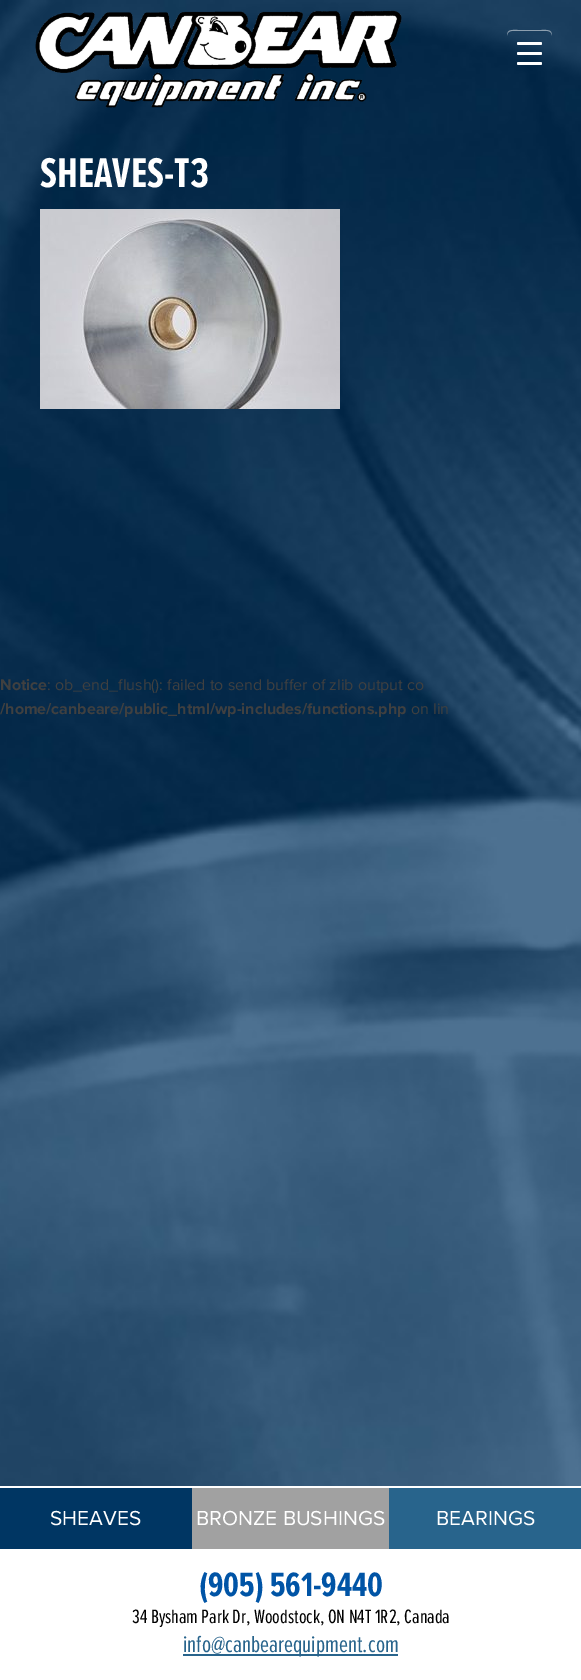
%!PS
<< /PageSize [581 1680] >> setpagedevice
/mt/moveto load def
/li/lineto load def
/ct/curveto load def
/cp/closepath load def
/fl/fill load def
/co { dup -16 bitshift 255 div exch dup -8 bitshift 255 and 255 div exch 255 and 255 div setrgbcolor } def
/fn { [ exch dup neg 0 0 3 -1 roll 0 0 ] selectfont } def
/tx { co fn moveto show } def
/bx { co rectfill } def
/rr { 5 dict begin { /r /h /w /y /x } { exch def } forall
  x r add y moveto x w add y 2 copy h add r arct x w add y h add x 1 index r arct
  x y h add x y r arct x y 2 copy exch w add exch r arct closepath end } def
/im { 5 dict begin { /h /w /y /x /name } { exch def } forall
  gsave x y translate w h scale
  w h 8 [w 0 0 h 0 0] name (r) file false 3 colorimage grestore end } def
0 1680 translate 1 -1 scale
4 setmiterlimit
0 0 581 1680 16#FFFFFF bx
(media/1.raw) 0 0 581 1486 im
16#8D9FAF co
512 31 mt 547 31 li 550 31 552 33 552 36 ct 552 29 547 30 541 30 ct 518 30 li 512 30 507 29 507 36 ct 507 33 509 31 512 31 ct cp fl
16#FFFFFF co
517 52 25 3 1.5 rr fl
517 42 25 3 1.5 rr fl
517 62 25 3 1.5 rr fl
(media/2.raw) 35 10 367 98 im
(media/3.raw) 40 209 300 200 im
0 1488 192 61 16#003663 bx
192 1488 197 61 16#A1A1A1 bx
389 1488 192 61 16#28648C bx
183 1654 215 2 16#28648C bx
(Notice) 0 690 /ProximaNova-Bold 16 16#404040 tx
(SHEAVES-T3) 40 187 /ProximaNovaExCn-Bold 43 16#FFFFFF tx
(SHEAVES) 50 1525 /ProximaNova-Regular 21 16#FFFFFF tx
(BRONZE BUSHINGS) 196 1525 /ProximaNova-Regular 21 16#FFFFFF tx
(BEARINGS) 436 1525 /ProximaNova-Regular 21 16#FFFFFF tx
(\(905\) 561-9440) 199 1596 /ProximaNovaExCn-Bold 35 16#0054A6 tx
(34 Bysham Park Dr, Woodstock, ON N4T 1R2, Canada) 132 1623 /ProximaNovaExCn-Regular 20 16#000000 tx
(info@canbearequipment.com) 183 1652 /ProximaNovaExCn-Regular 24 16#28648C tx
(: ob_end_flush\(\): failed to send buffer of zlib output co) 47 690 /ProximaNova-Regular 16 16#404040 tx
(/home/canbeare/public_html/wp-includes/functions.php) 0 714 /ProximaNova-Bold 16 16#404040 tx
(on lin) 411 714 /ProximaNova-Regular 16 16#404040 tx
showpage
